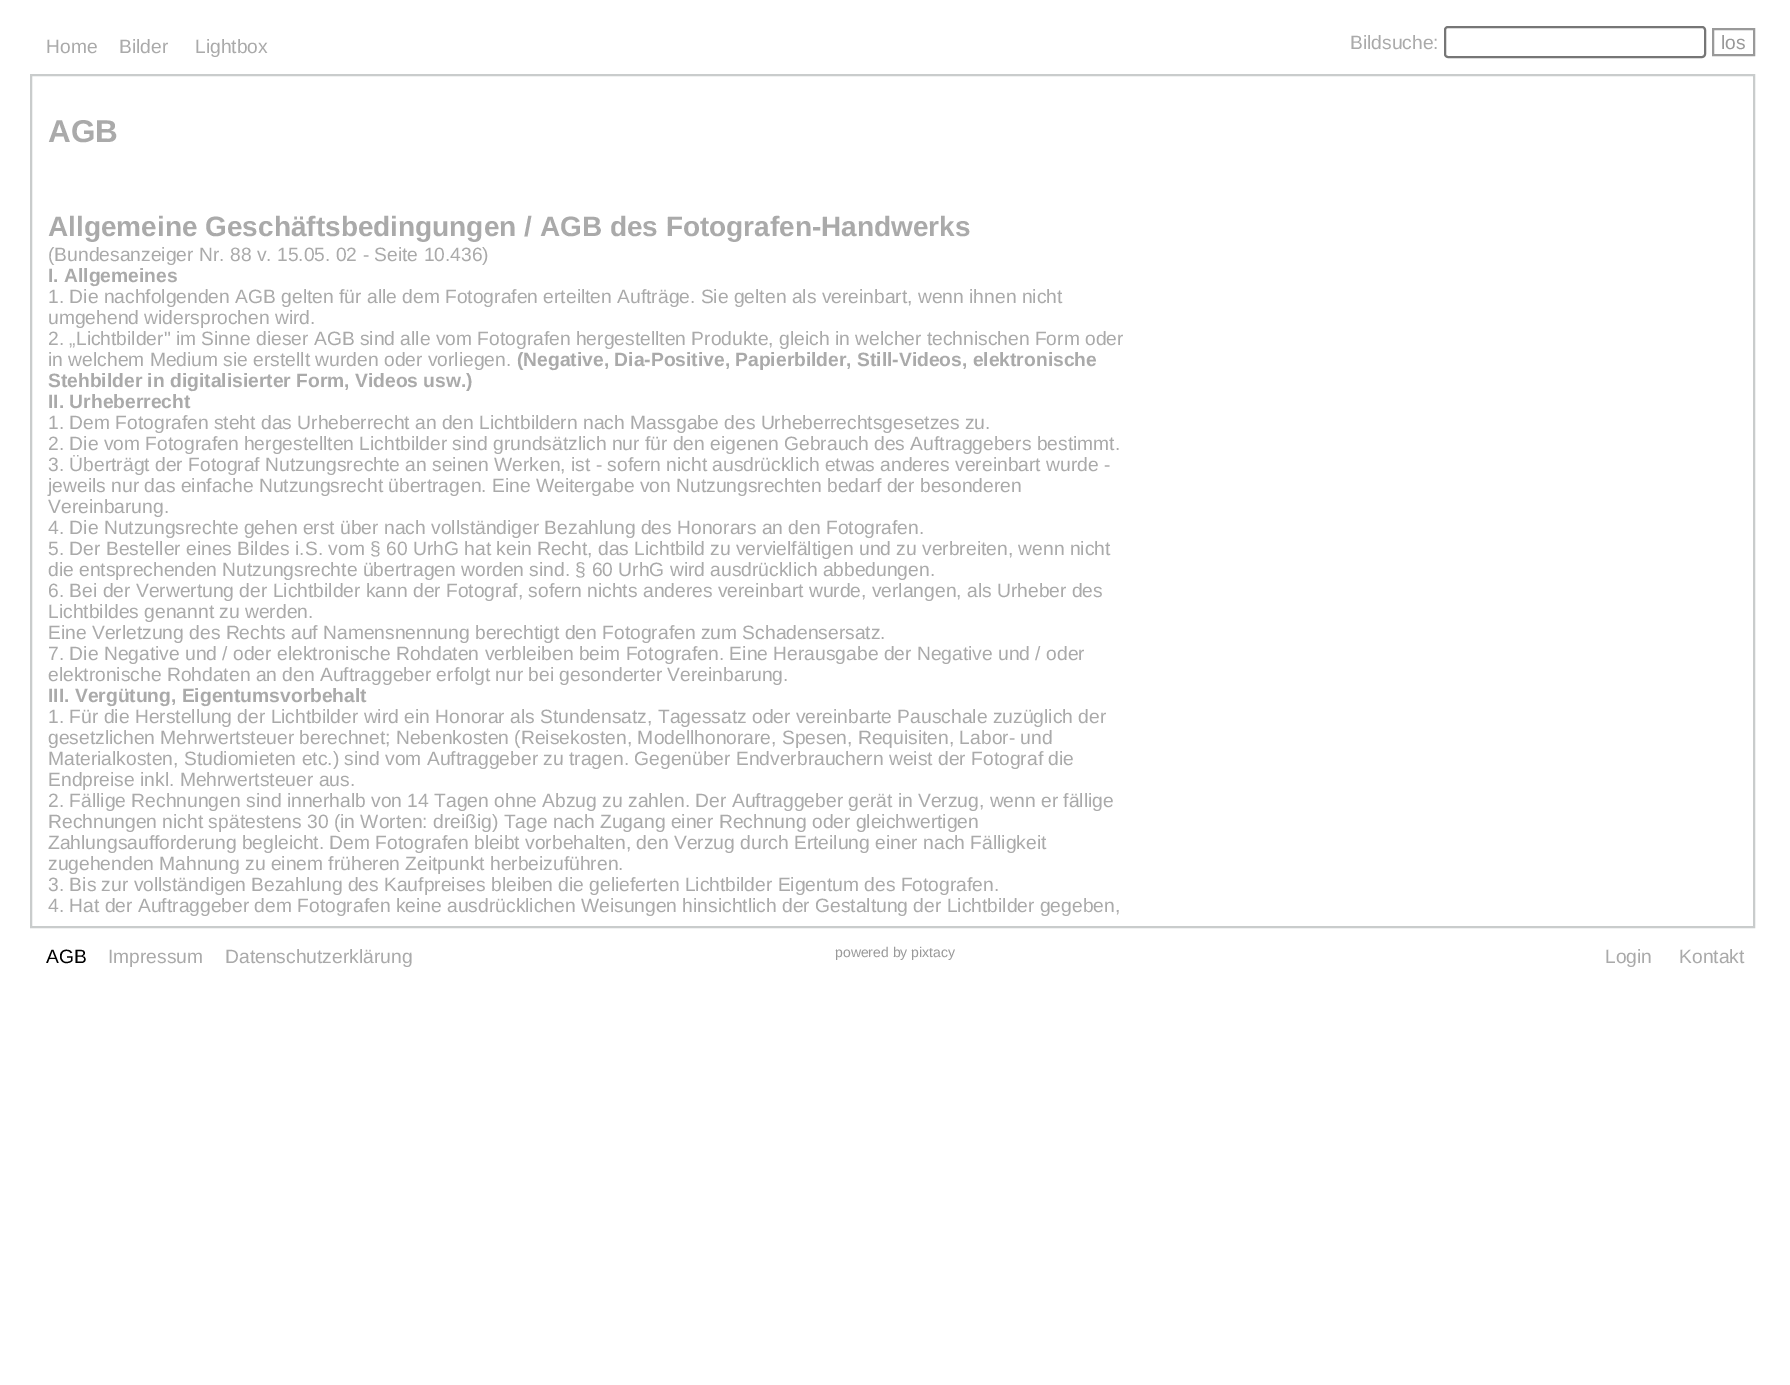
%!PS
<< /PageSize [1790 1385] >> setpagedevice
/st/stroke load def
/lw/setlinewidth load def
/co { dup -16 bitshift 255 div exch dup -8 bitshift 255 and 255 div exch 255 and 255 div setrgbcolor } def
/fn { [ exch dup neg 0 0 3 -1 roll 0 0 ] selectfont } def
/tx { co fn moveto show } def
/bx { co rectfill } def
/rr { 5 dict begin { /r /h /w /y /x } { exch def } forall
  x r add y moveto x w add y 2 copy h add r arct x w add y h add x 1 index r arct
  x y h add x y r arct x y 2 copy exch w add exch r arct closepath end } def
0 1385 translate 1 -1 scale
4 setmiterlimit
0 0 1790 1385 16#FFFFFF bx
16#767676 co
2 lw
1445 27 260 30 3 rr st
16#999999 co
1713 29 41 26 rectstroke
16#C9CCCC co
31 75 1723 852 rectstroke
(Home) 46 53 /LiberationSans-Regular 19.25 16#AAAAAA tx
(Bilder) 119 53 /LiberationSans-Regular 19.25 16#AAAAAA tx
(Lightbox) 195 53 /LiberationSans-Regular 19.25 16#AAAAAA tx
(Bildsuche:) 1350 49 /LiberationSans-Regular 19.25 16#AAAAAA tx
(los) 1721 49 /LiberationSans-Regular 19.25 16#999999 tx
(AGB) 48 142 /LiberationSans-Bold 31.5 16#AAAAAA tx
(Allgemeine Geschäftsbedingungen / AGB des Fotografen-Handwerks) 48 236 /LiberationSans-Bold 28 16#AAAAAA tx
(\(Bundesanzeiger Nr. 88 v. 15.05. 02 - Seite 10.436\)) 48 261 /LiberationSans-Regular 19.25 16#AAAAAA tx
(I. Allgemeines) 48 282 /LiberationSans-Bold 19.25 16#AAAAAA tx
(1. Die nachfolgenden AGB gelten für alle dem Fotografen erteilten Aufträge. Sie gelten als vereinbart, wenn ihnen nicht) 48 303 /LiberationSans-Regular 19.25 16#AAAAAA tx
(umgehend widersprochen wird.) 48 324 /LiberationSans-Regular 19.25 16#AAAAAA tx
(2. „Lichtbilder" im Sinne dieser AGB sind alle vom Fotografen hergestellten Produkte, gleich in welcher technischen Form oder) 48 345 /LiberationSans-Regular 19.25 16#AAAAAA tx
(in welchem Medium sie erstellt wurden oder vorliegen.) 48 366 /LiberationSans-Regular 19.25 16#AAAAAA tx
(\(Negative, Dia-Positive, Papierbilder, Still-Videos, elektronische) 517 366 /LiberationSans-Bold 19.25 16#AAAAAA tx
(Stehbilder in digitalisierter Form, Videos usw.\)) 48 387 /LiberationSans-Bold 19.25 16#AAAAAA tx
(II. Urheberrecht) 48 408 /LiberationSans-Bold 19.25 16#AAAAAA tx
(1. Dem Fotografen steht das Urheberrecht an den Lichtbildern nach Massgabe des Urheberrechtsgesetzes zu.) 48 429 /LiberationSans-Regular 19.25 16#AAAAAA tx
(2. Die vom Fotografen hergestellten Lichtbilder sind grundsätzlich nur für den eigenen Gebrauch des Auftraggebers bestimmt.) 48 450 /LiberationSans-Regular 19.25 16#AAAAAA tx
(3. Überträgt der Fotograf Nutzungsrechte an seinen Werken, ist - sofern nicht ausdrücklich etwas anderes vereinbart wurde -) 48 471 /LiberationSans-Regular 19.25 16#AAAAAA tx
(jeweils nur das einfache Nutzungsrecht übertragen. Eine Weitergabe von Nutzungsrechten bedarf der besonderen) 48 492 /LiberationSans-Regular 19.25 16#AAAAAA tx
(Vereinbarung.) 48 513 /LiberationSans-Regular 19.25 16#AAAAAA tx
(4. Die Nutzungsrechte gehen erst über nach vollständiger Bezahlung des Honorars an den Fotografen.) 48 534 /LiberationSans-Regular 19.25 16#AAAAAA tx
(5. Der Besteller eines Bildes i.S. vom § 60 UrhG hat kein Recht, das Lichtbild zu vervielfältigen und zu verbreiten, wenn nicht) 48 555 /LiberationSans-Regular 19.25 16#AAAAAA tx
(die entsprechenden Nutzungsrechte übertragen worden sind. § 60 UrhG wird ausdrücklich abbedungen.) 48 576 /LiberationSans-Regular 19.25 16#AAAAAA tx
(6. Bei der Verwertung der Lichtbilder kann der Fotograf, sofern nichts anderes vereinbart wurde, verlangen, als Urheber des) 48 597 /LiberationSans-Regular 19.25 16#AAAAAA tx
(Lichtbildes genannt zu werden.) 48 618 /LiberationSans-Regular 19.25 16#AAAAAA tx
(Eine Verletzung des Rechts auf Namensnennung berechtigt den Fotografen zum Schadensersatz.) 48 639 /LiberationSans-Regular 19.25 16#AAAAAA tx
(7. Die Negative und / oder elektronische Rohdaten verbleiben beim Fotografen. Eine Herausgabe der Negative und / oder) 48 660 /LiberationSans-Regular 19.25 16#AAAAAA tx
(elektronische Rohdaten an den Auftraggeber erfolgt nur bei gesonderter Vereinbarung.) 48 681 /LiberationSans-Regular 19.25 16#AAAAAA tx
(III. Vergütung, Eigentumsvorbehalt) 48 702 /LiberationSans-Bold 19.25 16#AAAAAA tx
(1. Für die Herstellung der Lichtbilder wird ein Honorar als Stundensatz, Tagessatz oder vereinbarte Pauschale zuzüglich der) 48 723 /LiberationSans-Regular 19.25 16#AAAAAA tx
(gesetzlichen Mehrwertsteuer berechnet; Nebenkosten \(Reisekosten, Modellhonorare, Spesen, Requisiten, Labor- und) 48 744 /LiberationSans-Regular 19.25 16#AAAAAA tx
(Materialkosten, Studiomieten etc.\) sind vom Auftraggeber zu tragen. Gegenüber Endverbrauchern weist der Fotograf die) 48 765 /LiberationSans-Regular 19.25 16#AAAAAA tx
(Endpreise inkl. Mehrwertsteuer aus.) 48 786 /LiberationSans-Regular 19.25 16#AAAAAA tx
(2. Fällige Rechnungen sind innerhalb von 14 Tagen ohne Abzug zu zahlen. Der Auftraggeber gerät in Verzug, wenn er fällige) 48 807 /LiberationSans-Regular 19.25 16#AAAAAA tx
(Rechnungen nicht spätestens 30 \(in Worten: dreißig\) Tage nach Zugang einer Rechnung oder gleichwertigen) 48 828 /LiberationSans-Regular 19.25 16#AAAAAA tx
(Zahlungsaufforderung begleicht. Dem Fotografen bleibt vorbehalten, den Verzug durch Erteilung einer nach Fälligkeit) 48 849 /LiberationSans-Regular 19.25 16#AAAAAA tx
(zugehenden Mahnung zu einem früheren Zeitpunkt herbeizuführen.) 48 870 /LiberationSans-Regular 19.25 16#AAAAAA tx
(3. Bis zur vollständigen Bezahlung des Kaufpreises bleiben die gelieferten Lichtbilder Eigentum des Fotografen.) 48 891 /LiberationSans-Regular 19.25 16#AAAAAA tx
(4. Hat der Auftraggeber dem Fotografen keine ausdrücklichen Weisungen hinsichtlich der Gestaltung der Lichtbilder gegeben,) 48 912 /LiberationSans-Regular 19.25 16#AAAAAA tx
(AGB) 46 963 /LiberationSans-Regular 19.25 16#000000 tx
(Impressum) 108 963 /LiberationSans-Regular 19.25 16#AAAAAA tx
(Datenschutzerklärung) 225 963 /LiberationSans-Regular 19.25 16#AAAAAA tx
(powered by pixtacy) 835 957 /LiberationSans-Regular 14 16#999999 tx
(Login) 1605 963 /LiberationSans-Regular 19.25 16#AAAAAA tx
(Kontakt) 1679 963 /LiberationSans-Regular 19.25 16#AAAAAA tx
showpage
